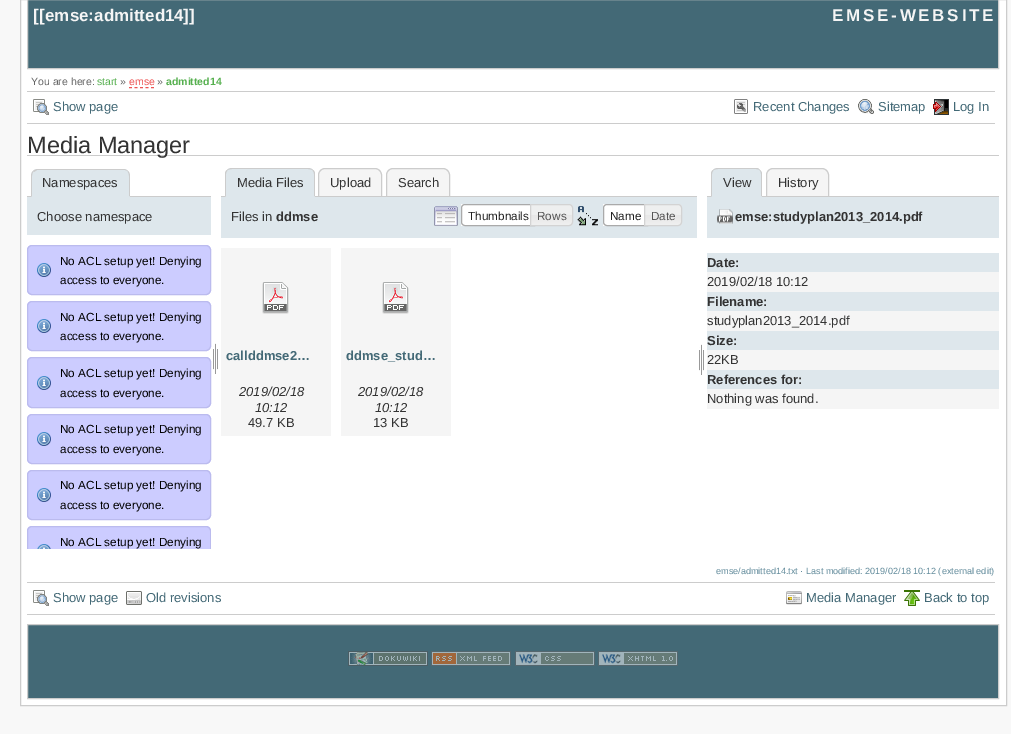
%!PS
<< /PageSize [1011 734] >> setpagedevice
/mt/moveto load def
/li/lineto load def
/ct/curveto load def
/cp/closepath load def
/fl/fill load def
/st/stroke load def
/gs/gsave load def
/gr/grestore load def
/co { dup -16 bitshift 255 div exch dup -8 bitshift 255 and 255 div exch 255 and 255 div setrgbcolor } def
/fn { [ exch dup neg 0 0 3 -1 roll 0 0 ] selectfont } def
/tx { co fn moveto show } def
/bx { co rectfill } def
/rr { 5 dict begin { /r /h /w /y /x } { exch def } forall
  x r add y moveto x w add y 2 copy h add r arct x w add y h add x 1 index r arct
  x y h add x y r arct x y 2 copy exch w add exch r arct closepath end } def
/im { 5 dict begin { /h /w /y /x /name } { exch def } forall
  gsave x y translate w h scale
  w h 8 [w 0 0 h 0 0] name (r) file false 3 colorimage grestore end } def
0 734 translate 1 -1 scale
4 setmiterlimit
0 0 1011 734 16#F8F8F8 bx
16#FFFFFF co
20.5 -.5 mt 1006.5 -.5 li 1006.5 705.5 li 20.5 705.5 li cp gs fl gr
16#CCCCCC co
st
16#436976 co
27.5 -.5 mt 998.5 -.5 li 998.5 68.5 li 27.5 68.5 li cp gs fl gr
16#CCCCCC co
st
16#ED5353 co
[3 2.5] 0 setdash
129 87.5 mt 154 87.5 li st
27 91 968 1 16#CCCCCC bx
27 123 968 1 16#CCCCCC bx
(media/1.raw) 33 99 16 16 im
(media/2.raw) 734 99 14 15 im
(media/3.raw) 858 99 16 15 im
(media/4.raw) 933 99 16 16 im
27 155 972 1 16#CCCCCC bx
27 196 184 1 16#CCCCCC bx
16#DEE7EC co
38 169 mt 123 169 li 127 169 130 172 130 176 ct 130 197 li 31 197 li 31 176 li 31 172 34 169 38 169 ct cp fl
16#CCCCCC co
38 169 mt 36 169 34 170 33 171 ct 34 172 li 37 170 li 125 170 li 128 171 li 127 170 125 169 124 169 ct cp fl
130 197 mt 130 176 li 130 174 129 172 128 171 ct 127.5 171.5 li 128.5 172.5 129 174 129 176 ct 129 196 li cp fl
16#DEE7EC co
130 197 mt 129 196 li 32 196 li 31 197 li cp fl
16#CCCCCC co
31 197 mt 32 196 li 32 176 li 32 174 32.5 172.5 33.5 171.5 ct 33 171 li 32 172 31 174 31 176 ct cp fl
27 197 184 38 16#DEE7EC bx
16#CCCCFF co
27 245 184 50 5 rr fl
(media/5.raw) 37 263 14 14 im
16#BBBBEE co
[] 0 setdash
27.5 245.5 183 49 4.5 rr st
16#CCCCFF co
27 301 184 50 5 rr fl
(media/5.raw) 37 319 14 14 im
16#BBBBEE co
27.5 301.5 183 49 4.5 rr st
16#CCCCFF co
27 357 184 51 5 rr fl
(media/5.raw) 37 376 14 14 im
16#BBBBEE co
27.5 357.5 183 50 4.5 rr st
16#CCCCFF co
27 414 184 50 5 rr fl
(media/5.raw) 37 432 14 14 im
16#BBBBEE co
27.5 414.5 183 49 4.5 rr st
16#CCCCFF co
27 470 184 50 5 rr fl
(media/5.raw) 37 488 14 14 im
16#BBBBEE co
27.5 470.5 183 49 4.5 rr st
16#CCCCFF co
32 526 mt 206 526 li 209 526 211 528 211 531 ct 211 549 li 27 549 li 27 531 li 27 528 29 526 32 526 ct cp fl
(media/6.raw) 37 544 14 5 im
gs
27 245 184 304 rectclip
16#BBBBEE co
27.5 526.5 183 49 4.5 rr st
gr
(media/7.raw) 213 343 5 31 im
16#F5F5F5 co
325 168.5 mt 375 168.5 li 378.5 168.5 381.5 171.5 381.5 175 ct 381.5 196.5 li 318.5 196.5 li 318.5 175 li 318.5 171.5 321.5 168.5 325 168.5 ct cp gs fl gr
16#CCCCCC co
st
16#F5F5F5 co
393 168.5 mt 443 168.5 li 446.5 168.5 449.5 171.5 449.5 175 ct 449.5 196.5 li 386.5 196.5 li 386.5 175 li 386.5 171.5 389.5 168.5 393 168.5 ct cp gs fl gr
16#CCCCCC co
st
221 196 476 1 16#CCCCCC bx
16#DEE7EC co
232 168 mt 308 168 li 312 168 315 171 315 175 ct 315 197 li 225 197 li 225 175 li 225 171 228 168 232 168 ct cp fl
16#CCCCCC co
232 168 mt 230 168 228 169 227 170 ct 228 170 230 169 232 169 ct 308 169 li 310 169 312 170 313 170 ct 312 169 310 168 308 168 ct cp fl
315 197 mt 315 174 li 315 172.5 314.5 171 313 170 ct 312.5 170.5 li 313.5 171.5 314 172.5 314 174 ct 314 196 li cp fl
16#DEE7EC co
315 197 mt 314 196 li 226 196 li 225 197 li cp fl
16#CCCCCC co
225 197 mt 226 196 li 226 174 li 226 172.5 226.5 171.5 227.5 170.5 ct 227 170 li 225.5 171 225 172.5 225 174 ct cp fl
221 197 476 41 16#DEE7EC bx
(media/8.raw) 434 206 24 20 im
461 204 69 22 16#FFFFFF bx
16#AAAAAA co
465 204.5 mt 534.5 204.5 li 534.5 225.5 li 465 225.5 li 463 225.5 461.5 224 461.5 222 ct 461.5 208 li 461.5 206 463 204.5 465 204.5 ct cp st
(media/9.raw) 531 204 42 22 im
16#D3D3D3 co
530.5 204.5 mt 569 204.5 li 571 204.5 572.5 206 572.5 208 ct 572.5 222 li 572.5 224 571 225.5 569 225.5 ct 530.5 225.5 li cp st
(media/10.raw) 577 206 21 20 im
603 204 41 22 16#FFFFFF bx
16#AAAAAA co
607 204.5 mt 647.5 204.5 li 647.5 225.5 li 607 225.5 li 605 225.5 603.5 224 603.5 222 ct 603.5 208 li 603.5 206 605 204.5 607 204.5 ct cp st
(media/11.raw) 645 204 37 22 im
16#D3D3D3 co
644.5 204.5 mt 678 204.5 li 680 204.5 681.5 206 681.5 208 ct 681.5 222 li 681.5 224 680 225.5 678 225.5 ct 644.5 225.5 li cp st
221 248 110 188 16#F5F5F5 bx
(media/12.raw) 262 282 27 32 im
341 248 110 188 16#F5F5F5 bx
(media/12.raw) 382 282 27 32 im
(media/7.raw) 699 344 5 31 im
773 168.5 mt 822 168.5 li 825.5 168.5 828.5 171.5 828.5 175 ct 828.5 196.5 li 766.5 196.5 li 766.5 175 li 766.5 171.5 769.5 168.5 773 168.5 ct cp gs fl gr
16#CCCCCC co
st
707 196 292 1 16#CCCCCC bx
16#DEE7EC co
718 168 mt 755 168 li 759 168 762 171 762 175 ct 762 197 li 711 197 li 711 175 li 711 171 714 168 718 168 ct cp fl
16#CCCCCC co
718 168 mt 716 168 714 169 713 170 ct 714 170 716 169 718 169 ct 756 169 li 758 169 759 170 760 170 ct 759 169 758 168 756 168 ct cp 762 197 mt 762 174 li 762 172.5 761 171 760 170 ct 759.5 170.5 li 760.5 171 761 172.5 761 174 ct 761 196 li cp fl
16#DEE7EC co
762 197 mt 761 196 li 712 196 li 711 197 li cp fl
16#CCCCCC co
711 197 mt 712 196 li 712 174 li 712 172.5 712.5 171.5 713.5 170.5 ct 713 170 li 711.5 171 711 172.5 711 174 ct cp fl
707 197 292 41 16#DEE7EC bx
(media/13.raw) 717 209 16 15 im
707 253 292 19 16#DEE7EC bx
707 272 292 20 16#F5F5F5 bx
707 292 292 19 16#DEE7EC bx
707 311 292 20 16#F5F5F5 bx
707 331 292 19 16#DEE7EC bx
707 350 292 20 16#F5F5F5 bx
707 370 292 19 16#DEE7EC bx
707 389 292 20 16#F5F5F5 bx
27 582 968 1 16#CCCCCC bx
27 614 968 1 16#CCCCCC bx
(media/1.raw) 33 590 16 16 im
(media/14.raw) 126 591 16 14 im
(media/15.raw) 786 591 16 14 im
(media/16.raw) 904 590 16 16 im
16#436976 co
27.5 624.5 mt 998.5 624.5 li 998.5 698.5 li 27.5 698.5 li cp gs fl gr
16#CCCCCC co
st
(media/17.raw) 348 651 80 15 im
(media/18.raw) 431 651 80 15 im
(media/19.raw) 515 651 80 15 im
(media/20.raw) 598 651 80 15 im
([[) 33 21 /LiberationSans-Bold 17 16#F5F5F5 tx
(emse:admitted14) 45 21 /LiberationSans-Bold 17 16#F5F5F5 tx
(]]) 183 21 /LiberationSans-Bold 17 16#F5F5F5 tx
832 21 mt 2.75 0 (EMSE-WEBSITE) ashow
(You are here:) 31 85 /LiberationSans-Regular 10.5 16#666666 tx
(start) 97 85 /LiberationSans-Regular 10.5 16#56B04F tx
(») 120 85 /LiberationSans-Regular 10.5 16#666666 tx
(emse) 129 85 /LiberationSans-Regular 10.5 16#ED5353 tx
(») 157 85 /LiberationSans-Regular 10.5 16#666666 tx
(admitted14) 166 85 /LiberationSans-Bold 10.5 16#56B04F tx
(Show page) 53 111 /LiberationSans-Regular 13 16#436976 tx
(Recent Changes) 753 111 /LiberationSans-Regular 13 16#436976 tx
(Sitemap) 878 111 /LiberationSans-Regular 13 16#436976 tx
(Log In) 953 111 /LiberationSans-Regular 13 16#436976 tx
(Media Manager) 27 153 /LiberationSans-Regular 23.5 16#333333 tx
(Namespaces) 42 187 /LiberationSans-Regular 13 16#333333 tx
(Choose namespace) 37 221 /LiberationSans-Regular 13 16#333333 tx
(No ACL setup yet! Denying) 60 265 /LiberationSans-Regular 11.75 16#000000 tx
(access to everyone.) 60 284 /LiberationSans-Regular 11.75 16#000000 tx
(No ACL setup yet! Denying) 60 321 /LiberationSans-Regular 11.75 16#000000 tx
(access to everyone.) 60 340 /LiberationSans-Regular 11.75 16#000000 tx
(No ACL setup yet! Denying) 60 377 /LiberationSans-Regular 11.75 16#000000 tx
(access to everyone.) 60 397 /LiberationSans-Regular 11.75 16#000000 tx
(No ACL setup yet! Denying) 60 433 /LiberationSans-Regular 11.75 16#000000 tx
(access to everyone.) 60 453 /LiberationSans-Regular 11.75 16#000000 tx
(No ACL setup yet! Denying) 60 489 /LiberationSans-Regular 11.75 16#000000 tx
(access to everyone.) 60 509 /LiberationSans-Regular 11.75 16#000000 tx
(No ACL setup yet! Denying) 60 546 /LiberationSans-Regular 11.75 16#000000 tx
(Media Files) 237 187 /LiberationSans-Regular 13 16#333333 tx
(Upload) 330 187 /LiberationSans-Regular 13 16#333333 tx
(Search) 398 187 /LiberationSans-Regular 13 16#333333 tx
(Files in) 231 221 /LiberationSans-Regular 13 16#333333 tx
(ddmse) 276 221 /LiberationSans-Bold 13 16#333333 tx
(Thumbnails) 468 220 /LiberationSans-Regular 11.75 16#212121 tx
(Rows) 537 220 /LiberationSans-Regular 11.75 16#555555 tx
(Name) 610 220 /LiberationSans-Regular 11.75 16#212121 tx
(Date) 651 220 /LiberationSans-Regular 11.75 16#555555 tx
(callddmse2…) 226 360 /LiberationSans-Bold 13 16#436976 tx
(2019/02/18) 239 396 /LiberationSans-Italic 13 16#333333 tx
(10:12) 255 412 /LiberationSans-Italic 13 16#333333 tx
(49.7 KB) 248 427 /LiberationSans-Regular 13 16#333333 tx
(ddmse_stud…) 346 360 /LiberationSans-Bold 13 16#436976 tx
(2019/02/18) 358 396 /LiberationSans-Italic 13 16#333333 tx
(10:12) 375 412 /LiberationSans-Italic 13 16#333333 tx
(13 KB) 373 427 /LiberationSans-Regular 13 16#333333 tx
(View) 723 187 /LiberationSans-Regular 13 16#333333 tx
(History) 778 187 /LiberationSans-Regular 13 16#333333 tx
(emse:studyplan2013_2014.pdf) 735 221 /LiberationSans-Bold 13 16#333333 tx
(Date:) 707 267 /LiberationSans-Bold 13 16#333333 tx
(2019/02/18 10:12) 707 286 /LiberationSans-Regular 13 16#333333 tx
(Filename:) 707 306 /LiberationSans-Bold 13 16#333333 tx
(studyplan2013_2014.pdf) 707 325 /LiberationSans-Regular 13 16#333333 tx
(Size:) 707 345 /LiberationSans-Bold 13 16#333333 tx
(22KB) 707 364 /LiberationSans-Regular 13 16#333333 tx
(References for:) 707 384 /LiberationSans-Bold 13 16#333333 tx
(Nothing was found.) 707 403 /LiberationSans-Regular 13 16#333333 tx
(emse/admitted14.txt · Last modified: 2019/02/18 10:12 \(external edit\)) 716 574 /LiberationSans-Regular 9.1 16#638C9C tx
(Show page) 53 602 /LiberationSans-Regular 13 16#436976 tx
(Old revisions) 146 602 /LiberationSans-Regular 13 16#436976 tx
(Media Manager) 806 602 /LiberationSans-Regular 13 16#436976 tx
(Back to top) 924 602 /LiberationSans-Regular 13 16#436976 tx
showpage
